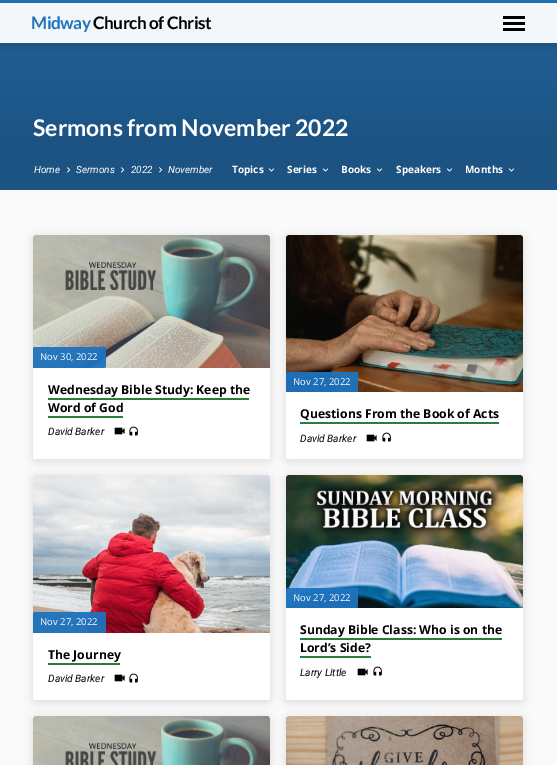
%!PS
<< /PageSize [557 765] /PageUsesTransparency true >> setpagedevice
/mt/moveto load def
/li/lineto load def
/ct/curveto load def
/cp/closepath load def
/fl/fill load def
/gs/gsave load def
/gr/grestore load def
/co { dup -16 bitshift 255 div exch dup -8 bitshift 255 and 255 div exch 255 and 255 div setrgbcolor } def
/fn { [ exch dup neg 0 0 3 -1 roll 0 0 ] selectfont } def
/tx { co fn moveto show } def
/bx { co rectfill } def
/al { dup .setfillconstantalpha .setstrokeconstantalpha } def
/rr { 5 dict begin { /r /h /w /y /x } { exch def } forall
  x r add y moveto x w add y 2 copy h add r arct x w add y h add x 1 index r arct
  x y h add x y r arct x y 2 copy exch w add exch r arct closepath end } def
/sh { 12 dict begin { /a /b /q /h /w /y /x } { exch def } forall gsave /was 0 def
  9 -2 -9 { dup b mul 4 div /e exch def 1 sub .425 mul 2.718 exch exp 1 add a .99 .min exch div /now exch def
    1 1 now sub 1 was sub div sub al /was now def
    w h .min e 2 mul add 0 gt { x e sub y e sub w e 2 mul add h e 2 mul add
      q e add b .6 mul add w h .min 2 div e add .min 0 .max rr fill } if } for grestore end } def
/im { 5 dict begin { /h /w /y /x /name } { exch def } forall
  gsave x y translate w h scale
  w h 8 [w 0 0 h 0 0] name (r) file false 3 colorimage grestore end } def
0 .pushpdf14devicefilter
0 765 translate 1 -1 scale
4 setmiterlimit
0 0 557 765 16#FAFAFA bx
0 0 557 3 16#1E72BC bx
0 3 557 40 16#F4F7FA bx
gs 0 43 mt 557 43 li 557 190 li 0 190 li cp clip newpath
<< /ShadingType 2 /ColorSpace /DeviceRGB /Coords [279 0 279 190] /Extend [true true] /Function << /FunctionType 3 /Domain [0 1] /Functions [<< /FunctionType 2 /Domain [0 1] /C0 [.122 .361 .569] /C1 [.122 .361 .569] /N 1 >> << /FunctionType 2 /Domain [0 1] /C0 [.122 .361 .569] /C1 [.11 .325 .51] /N 1 >> << /FunctionType 2 /Domain [0 1] /C0 [.11 .325 .51] /C1 [.11 .325 .51] /N 1 >>] /Bounds [.36 .76] /Encode [0 1 0 1 0 1] >> >> shfill gr
gs
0 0 mt 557 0 li 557 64 li 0 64 li cp 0 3 mt 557 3 li 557 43 li 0 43 li cp eoclip newpath
16#000000 co
0 5 557 40 0 6 .14 sh
gr
503 16 22 3 16#000000 bx
503 22 22 3 16#000000 bx
503 28 22 3 16#000000 bx
(media/1.raw) 67 167 4 6 im
(media/1.raw) 121 167 4 6 im
(media/1.raw) 159 167 4 6 im
(media/2.raw) 268 168 7 4 im
(media/2.raw) 322 168 7 4 im
(media/2.raw) 376 168 7 4 im
(media/2.raw) 446 168 7 4 im
(media/2.raw) 508 168 7 4 im
33 237 237 224 2 5 .12 sh
16#FFFFFF co
33 235 237 224 2 rr fl
(media/3.raw) 33 235 237 133 im
0.95 al
16#1E73BE co
35 347 mt 106 347 li 106 366 li 106 367 105 368 104 368 ct 33 368 li 33 349 li 33 348 34 347 35 347 ct cp fl
1 al
48 398 201 2 16#267F39 bx
48 416 75 2 16#267F39 bx
(media/4.raw) 114 427 11 8 im
(media/5.raw) 129 426 9 10 im
16#000000 co
286 237 237 224 2 5 .12 sh
16#FFFFFF co
286 235 237 224 2 rr fl
(media/6.raw) 286 235 237 157 im
0.95 al
16#1E73BE co
288 372 mt 358 372 li 358 390 li 358 391 357 392 356 392 ct 286 392 li 286 374 li 286 373 287 372 288 372 ct cp fl
1 al
300 422 199 2 16#267F39 bx
(media/4.raw) 366 434 11 8 im
(media/5.raw) 382 432 9 10 im
16#000000 co
33 477 237 225 2 5 .12 sh
16#FFFFFF co
33 475 237 225 2 rr fl
(media/7.raw) 33 475 237 158 im
0.95 al
16#1E73BE co
35 612 mt 106 612 li 106 631 li 106 632 105 633 104 633 ct 33 633 li 33 614 li 33 613 34 612 35 612 ct cp fl
1 al
48 663 72 2 16#267F39 bx
(media/4.raw) 114 674 11 8 im
(media/5.raw) 129 673 9 10 im
16#000000 co
286 477 237 225 2 5 .12 sh
16#FFFFFF co
286 475 237 225 2 rr fl
(media/8.raw) 286 475 237 133 im
0.95 al
16#1E73BE co
288 588 mt 358 588 li 358 606 li 358 607 357 608 356 608 ct 286 608 li 286 590 li 286 589 287 588 288 588 ct cp fl
1 al
300 638 202 2 16#267F39 bx
300 656 71 2 16#267F39 bx
(media/4.raw) 357 668 11 8 im
(media/5.raw) 373 666 9 10 im
16#000000 co
33 718 237 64 2 5 .12 sh
16#FFFFFF co
33 716 237 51 2 rr fl
(media/9.raw) 33 716 237 49 im
16#000000 co
286 718 237 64 2 5 .12 sh
16#FFFFFF co
286 716 237 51 2 rr fl
(media/10.raw) 286 716 237 49 im
/Lato-Bold 17.25 fn
16#1E73BE co
31 29 mt -.5 0 (Midway) ashow
16#000000 co
93 29 mt -.5 0 (Church of Christ) ashow
(Sermons from November 2022) 33 136 /Lato-Bold 23 16#FFFFFF tx
(Home) 34 173 /Roboto-Italic 10 16#FFFFFF tx
(Sermons) 76 173 /Roboto-Italic 10 16#FFFFFF tx
(2022) 131 173 /Roboto-Italic 10 16#FFFFFF tx
(November) 168 173 /Roboto-Italic 10 16#FFFFFF tx
(Topics) 232 173 /OpenSans-Bold 10 16#FFFFFF tx
(Series) 287 173 /OpenSans-Bold 10 16#FFFFFF tx
(Books) 341 173 /OpenSans-Bold 10 16#FFFFFF tx
(Speakers) 396 173 /OpenSans-Bold 10 16#FFFFFF tx
(Months) 465 173 /OpenSans-Bold 10 16#FFFFFF tx
(Nov 30, 2022) 40 360 /OpenSans-Regular 9.5 16#FFFFFF tx
(Wednesday Bible Study: Keep the) 48 394 /OpenSans-Bold 12.2 16#000000 tx
(Word of God) 48 412 /OpenSans-Bold 12.2 16#000000 tx
(David Barker) 48 435 /Roboto-Italic 10.25 16#000000 tx
(Nov 27, 2022) 293 385 /OpenSans-Regular 9.5 16#FFFFFF tx
(Questions From the Book of Acts) 300 418 /OpenSans-Bold 12.2 16#000000 tx
(David Barker) 300 442 /Roboto-Italic 10.25 16#000000 tx
(Nov 27, 2022) 40 625 /OpenSans-Regular 9.5 16#FFFFFF tx
(The Journey) 48 659 /OpenSans-Bold 12.2 16#000000 tx
(David Barker) 48 682 /Roboto-Italic 10.25 16#000000 tx
(Nov 27, 2022) 293 601 /OpenSans-Regular 9.5 16#FFFFFF tx
(Sunday Bible Class: Who is on the) 300 634 /OpenSans-Bold 12.2 16#000000 tx
(Lord’s Side?) 300 652 /OpenSans-Bold 12.2 16#000000 tx
(Larry Little) 300 676 /Roboto-Italic 10.25 16#000000 tx
.poppdf14devicefilter showpage
